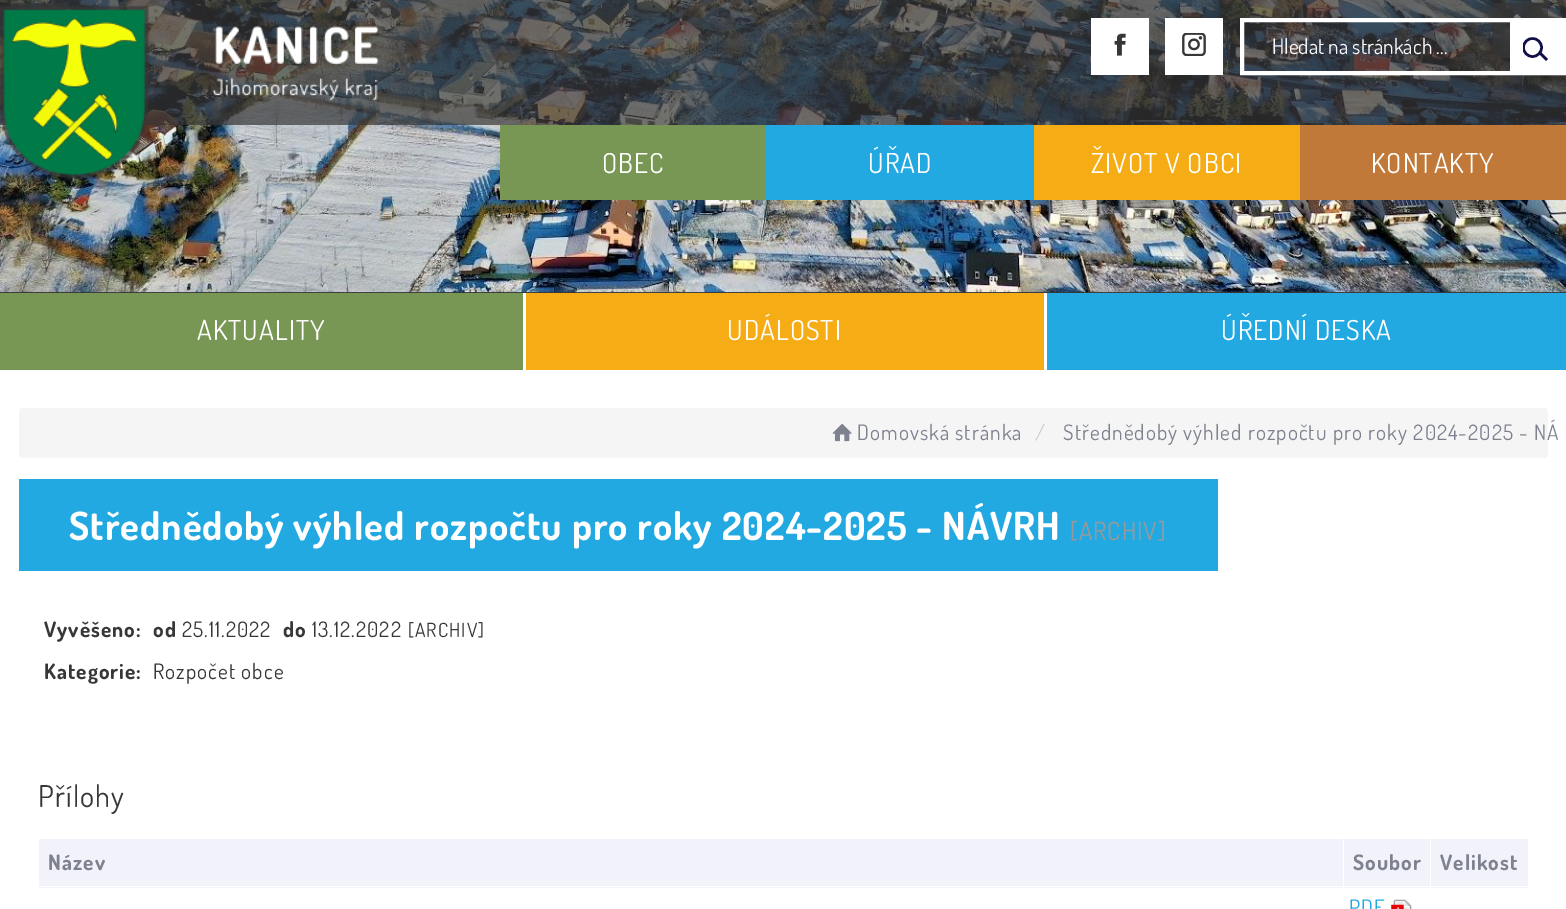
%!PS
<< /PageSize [1566 909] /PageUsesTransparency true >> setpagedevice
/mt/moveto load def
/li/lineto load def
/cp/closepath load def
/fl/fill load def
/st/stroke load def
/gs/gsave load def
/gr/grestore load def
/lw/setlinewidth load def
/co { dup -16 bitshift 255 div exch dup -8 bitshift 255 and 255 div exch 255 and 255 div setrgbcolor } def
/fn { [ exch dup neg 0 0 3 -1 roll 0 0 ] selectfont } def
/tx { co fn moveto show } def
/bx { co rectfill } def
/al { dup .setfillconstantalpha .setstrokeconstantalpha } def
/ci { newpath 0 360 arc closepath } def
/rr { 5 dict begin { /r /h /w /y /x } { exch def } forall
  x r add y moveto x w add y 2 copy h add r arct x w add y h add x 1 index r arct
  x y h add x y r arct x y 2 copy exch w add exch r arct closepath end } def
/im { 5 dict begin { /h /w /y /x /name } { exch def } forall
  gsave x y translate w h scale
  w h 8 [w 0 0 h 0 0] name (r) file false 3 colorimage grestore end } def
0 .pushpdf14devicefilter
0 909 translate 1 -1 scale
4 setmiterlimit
0 0 1566 909 16#FFFFFF bx
0 292 1566 1 16#373737 bx
(media/1.raw) 0 0 1566 293 im
0.7 al
13 3 55 8 16#373737 bx
1493 3 55 55 16#373737 bx
1 al
16#FFFFFF co
1533.5 30 mt 1517 14 li 1513.5 17 li 1527 30 li 1513.5 43.5 li 1517 46.5 li cp fl
0.7 al
0 0 1566 125 16#373737 bx
1 al
(media/2.raw) 0 5 379 174 im
1091 18 58 57 16#FFFFFF bx
(media/3.raw) 1114 33 12 23 im
1165 18 58 57 16#FFFFFF bx
(media/4.raw) 1182 33 24 23 im
4 lw
1242 20 322 53 rectstroke
1510 22 52 49 16#FFFFFF bx
gs
1523 36 26 25 rectclip
16#110F48 co
2.5 lw
1532.5 47.5 9 ci st
gr
16#110F48 co
2.5 lw
1540 53 mt 1547 60 li st
500 125 266 75 16#799754 bx
766 125 268 75 16#22A9E1 bx
1034 125 266 75 16#F6AC15 bx
1300 125 266 75 16#C07938 bx
0 293 523 77 16#799754 bx
1047 293 519 77 16#22A9E1 bx
526 293 518 77 16#F6AC15 bx
16#F5F5F5 co
19 408 1529 50 4 rr fl
(media/5.raw) 832 424 20 18 im
19 479 1199 92 16#22A9E1 bx
39 839 1304 49 16#F2F2FA bx
1344 839 86 49 16#F2F2FA bx
1431 839 97 49 16#F2F2FA bx
38 886 1491 1 16#FFFFFF bx
(media/6.raw) 1391 899 21 10 im
(Hledat na stránkách ...) 1272 54 /Dosis-Regular 21.25 16#F8F8FA tx
/Dosis-Regular 27.5 fn
16#FFFFFF co
602 173 mt 1.05 0 (OBEC) ashow
868 173 mt 1.05 0 (ÚŘAD) ashow
1091 173 mt 1.05 0 (ŽIVOT V OBCI) ashow
1371 173 mt 1.05 0 (KONTAKTY) ashow
197 340 mt 1.05 0 (AKTUALITY) ashow
727 340 mt 1.05 0 (UDÁLOSTI) ashow
1221 340 mt 1.05 0 (ÚŘEDNÍ DESKA) ashow
/Dosis-Regular 21.25 fn
16#7E828F co
857 440 mt 1.05 0 (Domovská stránka) ashow
16#CCCCCC co
1035 440 mt 1.05 0 (/) ashow
16#7E828F co
1063 440 mt 1.05 0 (Střednědobý výhled rozpočtu pro roky 2024-2025 - NÁ) ashow
/Dosis-Bold 38.75 fn
16#FFFFFF co
69 540 mt 1.05 0 (Střednědobý výhled rozpočtu pro roky 2024-2025 - NÁVRH) ashow
/Dosis-Regular 25 fn
16#999999 co
1070 540 mt 1.05 0 ([ARCHIV]) ashow
/Dosis-Bold 21.25 fn
16#373737 co
44 637 mt 1.05 0 (Vyvěšeno:) ashow
153 637 mt 1.05 0 (od) ashow
/Dosis-Regular 21.25 fn
182 637 mt 1.05 0 (25.11.2022) ashow
/Dosis-Bold 21.25 fn
283 637 mt 1.05 0 (do) ashow
/Dosis-Regular 21.25 fn
312 637 mt 1.05 0 (13.12.2022) ashow
/Dosis-Regular 19.5 fn
408 637 mt 1.05 0 ([ARCHIV]) ashow
/Dosis-Bold 21.25 fn
44 679 mt 1.05 0 (Kategorie:) ashow
/Dosis-Regular 21.25 fn
153 679 mt 1.05 0 (Rozpočet obce) ashow
/Dosis-Regular 30 fn
38 807 mt 1.05 0 (Přílohy) ashow
/Dosis-Bold 21.25 fn
16#7E828F co
48 870 mt 1.05 0 (Název) ashow
1353 870 mt 1.05 0 (Soubor) ashow
1440 870 mt 1.05 0 (Velikost) ashow
/Dosis-Regular 21.25 fn
16#22A9E1 co
1349 915 mt 1.05 0 (PDF) ashow
.poppdf14devicefilter showpage
